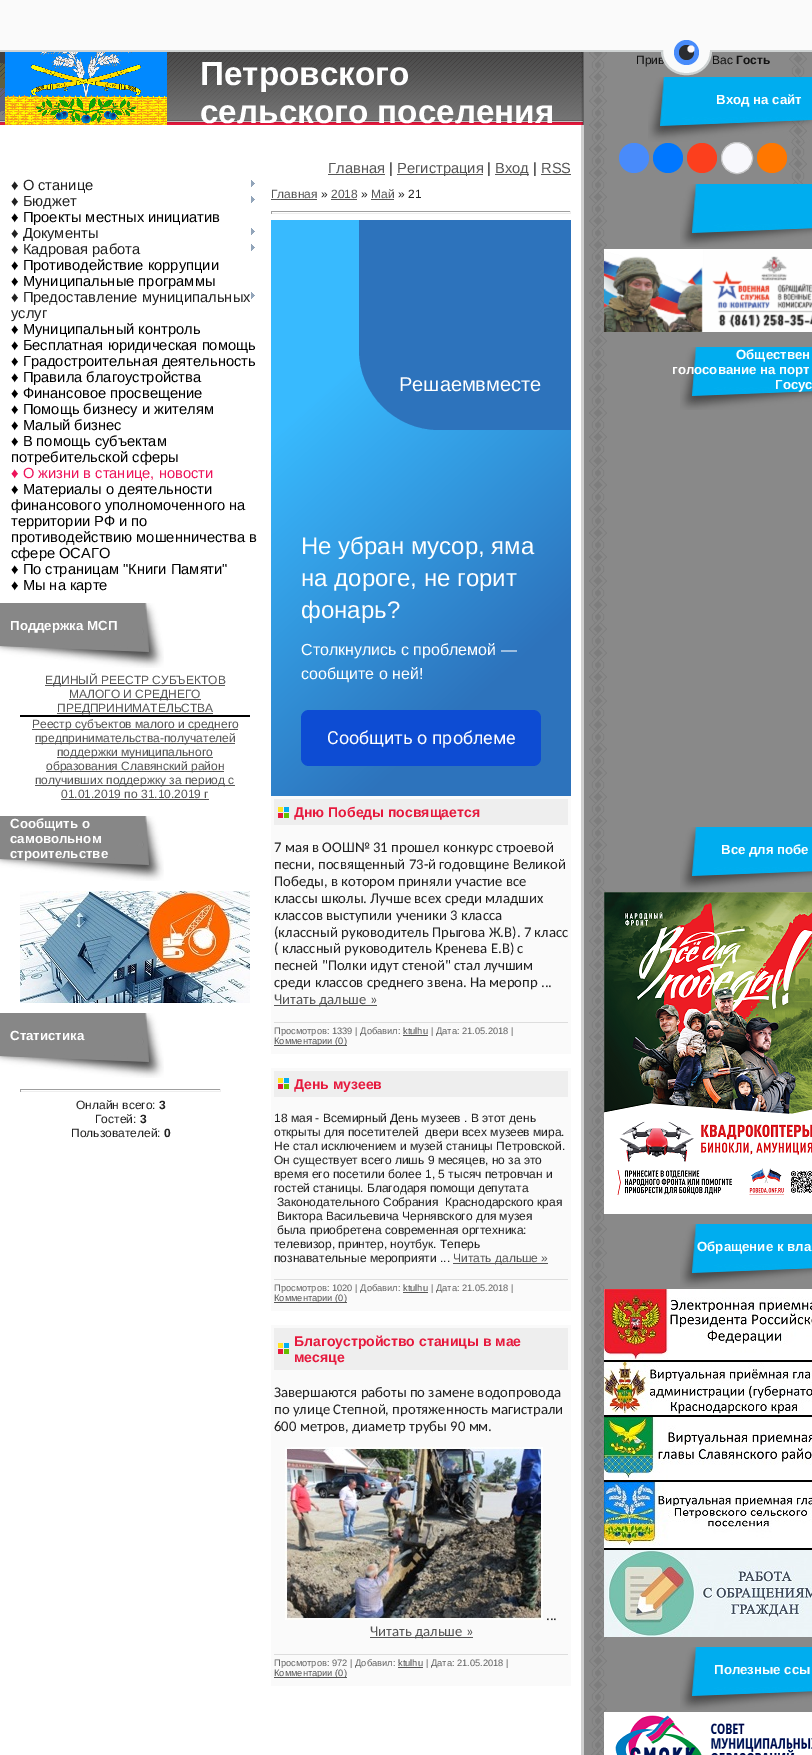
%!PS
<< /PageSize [812 1755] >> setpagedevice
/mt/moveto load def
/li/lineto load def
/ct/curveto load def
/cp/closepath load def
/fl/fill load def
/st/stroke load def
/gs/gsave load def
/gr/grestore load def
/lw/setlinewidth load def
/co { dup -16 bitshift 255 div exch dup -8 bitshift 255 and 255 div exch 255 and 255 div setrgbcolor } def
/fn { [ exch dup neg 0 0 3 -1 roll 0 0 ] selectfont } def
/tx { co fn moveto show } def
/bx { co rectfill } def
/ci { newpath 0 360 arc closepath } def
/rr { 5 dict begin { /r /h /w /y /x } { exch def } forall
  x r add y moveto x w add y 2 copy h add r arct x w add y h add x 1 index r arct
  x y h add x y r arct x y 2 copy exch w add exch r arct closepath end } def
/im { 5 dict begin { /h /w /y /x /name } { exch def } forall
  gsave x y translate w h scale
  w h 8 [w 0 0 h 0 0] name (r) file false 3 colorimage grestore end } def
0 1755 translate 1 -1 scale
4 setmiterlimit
0 0 812 1755 16#FFFFFF bx
0 0 812 50 16#FAFAFA bx
0 50 812 2 16#CED2D2 bx
(media/1.raw) 167 52 414 73 im
(media/2.raw) 0 52 167 73 im
328 174 57 1 16#565656 bx
397 174 86 1 16#565656 bx
495 174 34 1 16#565656 bx
541 174 30 1 16#565656 bx
(media/3.raw) 251 180 4 7 im
(media/3.raw) 251 196 4 7 im
(media/3.raw) 251 228 4 7 im
(media/3.raw) 251 244 4 7 im
(media/3.raw) 251 292 4 7 im
(media/4.raw) 0 603 164 65 im
45 685 180 1 16#565656 bx
69 699 132 1 16#565656 bx
57 713 156 1 16#565656 bx
20 715 230 2 16#000000 bx
32 729 206 1 16#565656 bx
35 743 200 1 16#565656 bx
57 757 156 1 16#565656 bx
46 771 178 1 16#565656 bx
35 785 200 1 16#565656 bx
61 799 148 1 16#565656 bx
(media/4.raw) 0 816 164 65 im
(media/5.raw) 20 891 230 112 im
(media/4.raw) 0 1013 164 65 im
20 1089 201 1 16#9F9F9F bx
220 1089 1 3 16#EEEEEE bx
20 1091 201 1 16#EEEEEE bx
20 1089 1 3 16#9F9F9F bx
271 199 46 1 16#565656 bx
331 199 26 1 16#565656 bx
371 199 23 1 16#565656 bx
271 211 300 1 16#9F9F9F bx
570 211 1 3 16#EEEEEE bx
271 213 300 1 16#EEEEEE bx
271 211 1 3 16#9F9F9F bx
gs 271 220 mt 571 220 li 571 796 li 271 796 li cp clip newpath
<< /ShadingType 2 /ColorSpace /DeviceRGB /Coords [212 272 630 744] /Extend [true true] /Function << /FunctionType 3 /Domain [0 1] /Functions [<< /FunctionType 2 /Domain [0 1] /C0 [.22 .729 .996] /C1 [.22 .729 .996] /N 1 >> << /FunctionType 2 /Domain [0 1] /C0 [.22 .729 .996] /C1 [.176 .451 .737] /N 1 >> << /FunctionType 2 /Domain [0 1] /C0 [.176 .451 .737] /C1 [.176 .451 .737] /N 1 >>] /Bounds [.26 .79] /Encode [0 1 0 1 0 1] >> >> shfill gr
16#2D73BC co
359 220 mt 571 220 li 571 430 li 439 430 li 395 430 359 394 359 350 ct cp fl
16#0D4CD3 co
301 710 240 56 8 rr fl
271 796 300 258 16#FAFAFA bx
274 799 294 26 16#EEEEEE bx
(media/6.raw) 278 807 11 11 im
274 1005 103 1 16#565656 bx
274 1022 294 1 16#DDDDDD bx
403 1035 25 1 16#565656 bx
274 1045 73 1 16#565656 bx
271 1068 300 243 16#FAFAFA bx
274 1071 294 26 16#EEEEEE bx
(media/6.raw) 278 1078 11 11 im
453 1263 95 1 16#565656 bx
274 1279 294 1 16#DDDDDD bx
403 1292 25 1 16#565656 bx
274 1302 73 1 16#565656 bx
271 1325 300 361 16#FAFAFA bx
274 1328 294 42 16#EEEEEE bx
(media/6.raw) 278 1343 11 11 im
(media/7.raw) 285 1447 258 173 im
370 1637 103 1 16#565656 bx
274 1654 294 1 16#DDDDDD bx
398 1667 25 1 16#565656 bx
274 1677 73 1 16#565656 bx
581 125 3 1630 16#CFCFCF bx
(media/8.raw) 581 52 3 73 im
584 52 228 1703 16#898989 bx
(media/9.raw) 589 52 18 1703 im
(media/10.raw) 789 52 18 25 im
(media/11.raw) 648 77 164 65 im
(media/12.raw) 789 142 18 42 im
16#498BFA co
634 158 15 ci fl
16#0077FF co
668 158 15 ci fl
16#FC3F1D co
702 158 15 ci fl
16#F8F8FC co
737 158 15.5 ci gs fl gr
16#C4C4C4 co
st
16#FF7700 co
772 158 15 ci fl
(media/13.raw) 680 184 132 63 im
(media/14.raw) 604 249 208 83 im
(media/13.raw) 680 347 132 63 im
(media/13.raw) 680 827 132 63 im
(media/15.raw) 604 892 208 322 im
(media/13.raw) 680 1224 132 63 im
(media/16.raw) 604 1289 208 71 im
604 1360 208 2 16#000000 bx
(media/17.raw) 604 1362 208 53 im
604 1415 208 2 16#000000 bx
(media/18.raw) 604 1417 208 63 im
604 1480 208 2 16#000000 bx
(media/19.raw) 604 1482 208 66 im
604 1548 208 2 16#000000 bx
(media/20.raw) 604 1550 208 87 im
(media/13.raw) 680 1647 132 63 im
(media/21.raw) 604 1712 208 43 im
(Петровского) 200 85 /LiberationSans-Bold 33.25 16#FFFFFF tx
(сельского поселения) 200 123 /LiberationSans-Bold 33.25 16#FFFFFF tx
(Главная) 328 173 /LiberationSans-Regular 14.7 16#565656 tx
(|) 389 173 /LiberationSans-Regular 14.7 16#212121 tx
(Регистрация) 397 173 /LiberationSans-Regular 14.7 16#565656 tx
(|) 487 173 /LiberationSans-Regular 14.7 16#212121 tx
(Вход) 495 173 /LiberationSans-Regular 14.7 16#565656 tx
(|) 533 173 /LiberationSans-Regular 14.7 16#212121 tx
(RSS) 541 173 /LiberationSans-Regular 14.7 16#565656 tx
(♦ О станице) 11 190 /LiberationSans-Regular 14.7 16#212121 tx
(♦ Бюджет) 11 206 /LiberationSans-Regular 14.7 16#212121 tx
(♦ Проекты местных инициатив) 11 222 /LiberationSans-Regular 14.7 16#000000 tx
(♦ Документы) 11 238 /LiberationSans-Regular 14.7 16#212121 tx
(♦ Кадровая работа) 11 254 /LiberationSans-Regular 14.7 16#212121 tx
(♦ Противодействие коррупции) 11 270 /LiberationSans-Regular 14.7 16#000000 tx
(♦ Муниципальные программы) 11 286 /LiberationSans-Regular 14.7 16#000000 tx
(♦ Предоставление муниципальных) 11 302 /LiberationSans-Regular 14.7 16#212121 tx
(услуг) 11 318 /LiberationSans-Regular 14.7 16#212121 tx
(♦ Муниципальный контроль) 11 334 /LiberationSans-Regular 14.7 16#000000 tx
(♦ Бесплатная юридическая помощь) 11 350 /LiberationSans-Regular 14.7 16#000000 tx
(♦ Градостроительная деятельность) 11 366 /LiberationSans-Regular 14.7 16#000000 tx
(♦ Правила благоустройства) 11 382 /LiberationSans-Regular 14.7 16#000000 tx
(♦ Финансовое просвещение) 11 398 /LiberationSans-Regular 14.7 16#000000 tx
(♦ Помощь бизнесу и жителям) 11 414 /LiberationSans-Regular 14.7 16#000000 tx
(♦ Малый бизнес) 11 430 /LiberationSans-Regular 14.7 16#000000 tx
(♦ В помощь субъектам) 11 446 /LiberationSans-Regular 14.7 16#000000 tx
(потребительской сферы) 11 462 /LiberationSans-Regular 14.7 16#000000 tx
(♦ О жизни в станице, новости) 11 478 /LiberationSans-Regular 14.7 16#ED135A tx
(♦ Материалы о деятельности) 11 494 /LiberationSans-Regular 14.7 16#000000 tx
(финансового уполномоченного на) 11 510 /LiberationSans-Regular 14.7 16#000000 tx
(территории РФ и по) 11 526 /LiberationSans-Regular 14.7 16#000000 tx
(противодействию мошенничества в) 11 542 /LiberationSans-Regular 14.7 16#000000 tx
(сфере ОСАГО) 11 558 /LiberationSans-Regular 14.7 16#000000 tx
(♦ По страницам "Книги Памяти") 11 574 /LiberationSans-Regular 14.7 16#000000 tx
(♦ Мы на карте) 11 590 /LiberationSans-Regular 14.7 16#000000 tx
(Поддержка МСП) 10 630 /LiberationSans-Bold 13.25 16#FFFFFF tx
(ЕДИНЫЙ РЕЕСТР СУБЪЕКТОВ) 45 684 /LiberationSans-Regular 12 16#565656 tx
(МАЛОГО И СРЕДНЕГО) 69 698 /LiberationSans-Regular 12 16#565656 tx
(ПРЕДПРИНИМАТЕЛЬСТВА) 57 712 /LiberationSans-Regular 12 16#565656 tx
(Реестр субъектов малого и среднего) 32 728 /LiberationSans-Regular 12 16#565656 tx
(предпринимательства-получателей) 35 742 /LiberationSans-Regular 12 16#565656 tx
(поддержки муниципального) 57 756 /LiberationSans-Regular 12 16#565656 tx
(образования Славянский район) 46 770 /LiberationSans-Regular 12 16#565656 tx
(получивших поддержку за период с) 35 784 /LiberationSans-Regular 12 16#565656 tx
(01.01.2019 по 31.10.2019 г) 61 798 /LiberationSans-Regular 12 16#565656 tx
(Сообщить о) 10 828 /LiberationSans-Bold 13.25 16#FFFFFF tx
(самовольном) 10 843 /LiberationSans-Bold 13.25 16#FFFFFF tx
(строительстве) 10 858 /LiberationSans-Bold 13.25 16#FFFFFF tx
(Статистика) 10 1040 /LiberationSans-Bold 13.25 16#FFFFFF tx
(Онлайн всего:) 76 1109 /LiberationSans-Regular 12 16#212121 tx
(3) 159 1109 /LiberationSans-Bold 12 16#212121 tx
(Гостей:) 95 1123 /LiberationSans-Regular 12 16#212121 tx
(3) 140 1123 /LiberationSans-Bold 12 16#212121 tx
(Пользователей:) 71 1137 /LiberationSans-Regular 12 16#212121 tx
(0) 164 1137 /LiberationSans-Bold 12 16#212121 tx
(Главная) 271 198 /LiberationSans-Regular 12 16#565656 tx
(») 321 198 /LiberationSans-Regular 12 16#212121 tx
(2018) 331 198 /LiberationSans-Regular 12 16#565656 tx
(») 361 198 /LiberationSans-Regular 12 16#212121 tx
(Май) 371 198 /LiberationSans-Regular 12 16#565656 tx
(» 21) 398 198 /LiberationSans-Regular 12 16#212121 tx
(Решаемвместе) 399 391 /LiberationSans-Regular 20 16#FFFFFF tx
(Не убран мусор, яма) 301 554 /LiberationSans-Regular 24 16#FFFFFF tx
(на дороге, не горит) 301 586 /LiberationSans-Regular 24 16#FFFFFF tx
(фонарь?) 301 618 /LiberationSans-Regular 24 16#FFFFFF tx
(Столкнулись с проблемой —) 301 655 /LiberationSans-Regular 16 16#FFFFFF tx
(сообщите о ней!) 301 679 /LiberationSans-Regular 16 16#FFFFFF tx
(Сообщить о проблеме) 327 744 /Roboto-Regular 18 16#FFFFFF tx
(Дню Победы посвящается) 294 817 /LiberationSans-Bold 14 16#E6193D tx
(7 мая в ООШ№ 31 прошел конкурс строевой) 274 852 /Carlito-Regular 14.7 16#212121 tx
(песни, посвященный 73-й годовщине Великой) 274 869 /Carlito-Regular 14.7 16#212121 tx
(Победы, в котором приняли участие все) 274 886 /Carlito-Regular 14.7 16#212121 tx
(классы школы. Лучше всех среди младших) 274 903 /Carlito-Regular 14.7 16#212121 tx
(классов выступили ученики 3 класса) 274 920 /Carlito-Regular 14.7 16#212121 tx
(\(классный руководитель Прыгова Ж.В\). 7 класс) 274 937 /Carlito-Regular 14.7 16#212121 tx
(\( классный руководитель Кренева Е.В\) с) 274 953 /Carlito-Regular 14.7 16#212121 tx
(песней "Полки идут стеной" стал лучшим) 274 970 /Carlito-Regular 14.7 16#212121 tx
(среди классов среднего звена. На меропр ...) 274 987 /Carlito-Regular 14.7 16#212121 tx
(Читать дальше ») 274 1004 /Carlito-Regular 14.7 16#565656 tx
(Просмотров: 1339 | Добавил:) 274 1034 /LiberationSans-Regular 9.3 16#636363 tx
(ktulhu) 403 1034 /LiberationSans-Regular 9.3 16#565656 tx
(| Дата: 21.05.2018 |) 431 1034 /LiberationSans-Regular 9.3 16#636363 tx
(Комментарии \(0\)) 274 1044 /LiberationSans-Regular 9.3 16#565656 tx
(День музеев) 294 1089 /LiberationSans-Bold 14 16#E6193D tx
(18 мая - Всемирный День музеев . В этот день) 274 1122 /LiberationSans-Regular 12 16#212121 tx
(открыты для посетителей  двери всех музеев мира.) 274 1136 /LiberationSans-Regular 12 16#212121 tx
(Не стал исключением и музей станицы Петровской.) 274 1150 /LiberationSans-Regular 12 16#212121 tx
(Он существует всего лишь 9 месяцев, но за это) 274 1164 /LiberationSans-Regular 12 16#212121 tx
(время его посетили более 1, 5 тысяч петровчан и) 274 1178 /LiberationSans-Regular 12 16#212121 tx
(гостей станицы. Благодаря помощи депутата) 274 1192 /LiberationSans-Regular 12 16#212121 tx
(Законодательного Собрания  Краснодарского края) 277 1206 /LiberationSans-Regular 12 16#212121 tx
(Виктора Васильевича Чернявского для музея) 277 1220 /LiberationSans-Regular 12 16#212121 tx
(была приобретена современная оргтехника:) 277 1234 /LiberationSans-Regular 12 16#212121 tx
(телевизор, принтер, ноутбук. Теперь) 274 1248 /LiberationSans-Regular 12 16#212121 tx
(познавательные мероприяти ...) 274 1262 /LiberationSans-Regular 12 16#212121 tx
(Читать дальше ») 453 1262 /LiberationSans-Regular 12 16#565656 tx
(Просмотров: 1020 | Добавил:) 274 1291 /LiberationSans-Regular 9.3 16#636363 tx
(ktulhu) 403 1291 /LiberationSans-Regular 9.3 16#565656 tx
(| Дата: 21.05.2018 |) 431 1291 /LiberationSans-Regular 9.3 16#636363 tx
(Комментарии \(0\)) 274 1301 /LiberationSans-Regular 9.3 16#565656 tx
(Благоустройство станицы в мае) 294 1346 /LiberationSans-Bold 14 16#E6193D tx
(месяце) 294 1362 /LiberationSans-Bold 14 16#E6193D tx
(Завершаются работы по замене водопровода) 274 1397 /Carlito-Regular 14.7 16#212121 tx
(по улице Степной, протяженность магистрали) 274 1414 /Carlito-Regular 14.7 16#212121 tx
(600 метров, диаметр трубы 90 мм.) 274 1431 /Carlito-Regular 14.7 16#212121 tx
(...) 546 1620 /Carlito-Regular 14.7 16#212121 tx
(Читать дальше ») 370 1636 /Carlito-Regular 14.7 16#565656 tx
(Просмотров: 972 | Добавил:) 274 1666 /LiberationSans-Regular 9.3 16#636363 tx
(ktulhu) 398 1666 /LiberationSans-Regular 9.3 16#565656 tx
(| Дата: 21.05.2018 |) 426 1666 /LiberationSans-Regular 9.3 16#636363 tx
(Комментарии \(0\)) 274 1676 /LiberationSans-Regular 9.3 16#565656 tx
(Прив) 636 64 /LiberationSans-Regular 12 16#121212 tx
gs
661 39 51 50 rectclip
16#FAFAFA co
662 28 49 46 23 rr gs fl gr
16#CED2D2 co
2 lw
st
gr
661 39 51 11 16#FAFAFA bx
16#488BFA co
686.5 52.5 12.5 ci fl
16#2B2D31 co
686.5 52.5 7.5 ci fl
16#FFF8F8 co
691 49 3.5 ci fl
(Вас) 712 64 /LiberationSans-Regular 12 16#121212 tx
(Гость) 736 64 /LiberationSans-Bold 12 16#121212 tx
(Вход на сайт) 716 104 /LiberationSans-Bold 13.25 16#FFFFFF tx
(Обществен) 736 359 /LiberationSans-Bold 13.25 16#FFFFFF tx
(голосование на порт) 672 374 /LiberationSans-Bold 13.25 16#FFFFFF tx
(Госус) 775 389 /LiberationSans-Bold 13.25 16#FFFFFF tx
(Все для побе) 721 854 /LiberationSans-Bold 13.25 16#FFFFFF tx
(Обращение к вла) 697 1251 /LiberationSans-Bold 13.25 16#FFFFFF tx
(Полезные ссы) 714 1674 /LiberationSans-Bold 13.25 16#FFFFFF tx
showpage
